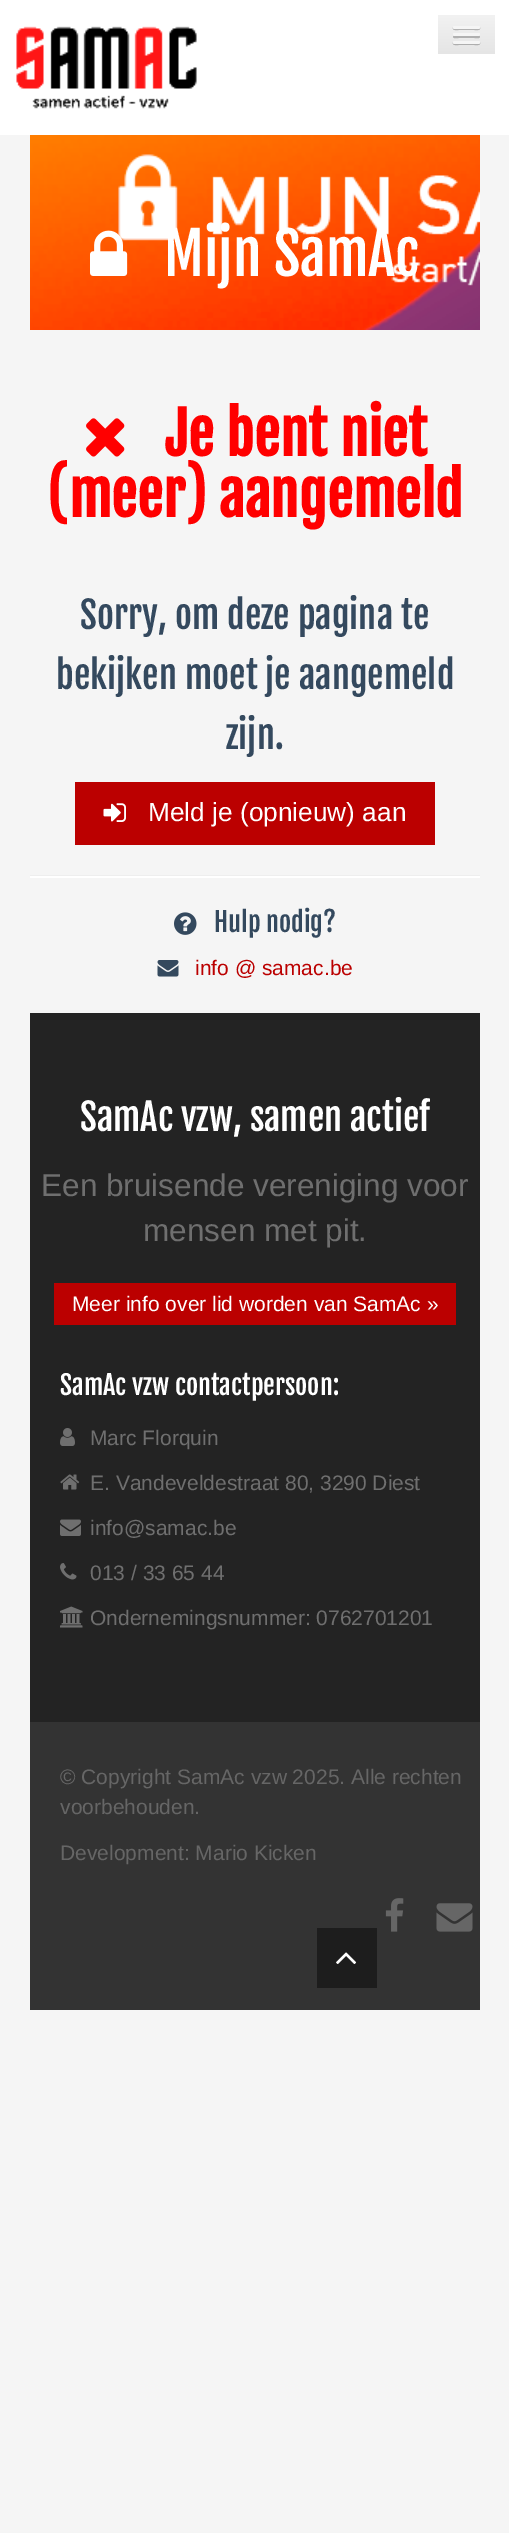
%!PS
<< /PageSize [509 2533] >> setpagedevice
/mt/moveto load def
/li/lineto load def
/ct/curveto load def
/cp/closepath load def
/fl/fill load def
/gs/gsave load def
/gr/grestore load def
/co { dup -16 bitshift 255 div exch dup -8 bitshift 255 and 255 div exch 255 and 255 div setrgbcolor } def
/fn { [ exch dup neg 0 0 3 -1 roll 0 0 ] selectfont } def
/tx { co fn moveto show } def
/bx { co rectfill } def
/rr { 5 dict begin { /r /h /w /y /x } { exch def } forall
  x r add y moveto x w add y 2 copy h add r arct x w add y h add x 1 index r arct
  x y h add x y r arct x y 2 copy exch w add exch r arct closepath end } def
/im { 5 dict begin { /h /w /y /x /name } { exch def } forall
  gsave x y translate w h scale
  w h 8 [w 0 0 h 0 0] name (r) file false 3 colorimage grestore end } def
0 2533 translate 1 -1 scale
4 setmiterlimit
0 0 509 2533 16#F5F5F5 bx
0 0 509 135 16#FFFFFF bx
(media/1.raw) 16 26 181 83 im
gs 438 15 mt 495 15 li 495 54 li 438 54 li cp clip newpath
<< /ShadingType 2 /ColorSpace /DeviceRGB /Coords [467 15 467 54] /Extend [true true] /Function << /FunctionType 2 /Domain [0 1] /C0 [.949 .949 .949] /C1 [.898 .898 .898] /N 1 >> >> shfill gr
16#B2B2B2 co
453 27.5 mt 451.5 31 458.5 30 458.5 30 ct 474.5 30 li 474.5 30 481.5 31 480 27.5 ct 479.5 28 479 28.5 478.5 28.5 ct 454.5 28.5 li 454 28.5 453.5 28 453 27.5 ct cp fl
16#F5F5F5 co
453 26 27 3 1.5 rr fl
16#B0B0B0 co
453.5 35.5 mt 453 37 li 453.5 39 458 38 458.5 38 ct 474.5 38 li 475 38 479.5 39 480 37 ct 479.5 35.5 li 478.5 36 li 454.5 36 li cp fl
16#F5F5F5 co
453 33 27 3 1.5 rr fl
16#AEAEAE co
453 42.5 mt 451.5 46 458.5 45 458.5 45 ct 474.5 45 li 474.5 45 481.5 46 480 42.5 ct 479.5 43 479 43.5 478.5 43.5 ct 454.5 43.5 li 454 43.5 453.5 43 453 42.5 ct cp fl
16#F5F5F5 co
453 41 27 3 1.5 rr fl
(media/2.raw) 30 135 450 195 im
(media/3.raw) 90 230 38 46 im
(media/4.raw) 86 418 39 39 im
75 782 360 63 16#BB0000 bx
(media/5.raw) 103 803 23 19 im
30 875 450 1 16#EEEEEE bx
30 876 450 2 16#FFFFFF bx
(media/6.raw) 174 912 23 23 im
(media/7.raw) 157 960 22 17 im
30 1013 450 709 16#232323 bx
54 1283 402 42 16#BB0000 bx
(media/8.raw) 60 1428 15 18 im
(media/9.raw) 60 1474 20 16 im
(media/10.raw) 60 1519 21 17 im
(media/11.raw) 60 1563 17 17 im
(media/12.raw) 60 1606 23 22 im
30 1722 450 288 16#333333 bx
(media/13.raw) 385 1898 19 34 im
(media/14.raw) 436 1903 37 29 im
317 1928 60 60 16#1D1D1D bx
(media/15.raw) 336 1952 21 12 im
(Mijn SamAc) 164 276 /FjallaOne-Regular 57.75 16#FFFFFF tx
(Je bent niet) 165 456 /FjallaOne-Bold 57.75 16#FF0000 tx
(\(meer\) aangemeld) 47 517 /FjallaOne-Bold 57.75 16#FF0000 tx
(Sorry, om deze pagina te) 80 629 /FjallaOne-Regular 36.75 16#34495E tx
(bekijken moet je aangemeld) 56 689 /FjallaOne-Regular 36.75 16#34495E tx
(zijn.) 226 749 /FjallaOne-Regular 36.75 16#34495E tx
(Meld je \(opnieuw\) aan) 148 821 /LiberationSans-Regular 26.25 16#FFFFFF tx
(Hulp nodig?) 214 932 /FjallaOne-Regular 26.25 16#34495E tx
(info @ samac.be) 195 975 /LiberationSans-Regular 21 16#BB0000 tx
(SamAc vzw, samen actief) 80 1131 /FjallaOne-Regular 36.75 16#FFFFFF tx
(Een bruisende vereniging voor) 41 1196 /LiberationSans-Regular 31.5 16#6F6F6F tx
(mensen met pit.) 143 1241 /LiberationSans-Regular 31.5 16#6F6F6F tx
(Meer info over lid worden van SamAc ») 72 1311 /LiberationSans-Regular 21 16#FFFFFF tx
(SamAc vzw contactpersoon:) 60 1395 /FjallaOne-Regular 26.25 16#FFFFFF tx
(Marc Florquin) 90 1445 /LiberationSans-Regular 21 16#6F6F6F tx
(E. Vandeveldestraat 80, 3290 Diest) 90 1490 /LiberationSans-Regular 21 16#6F6F6F tx
(info@samac.be) 90 1535 /LiberationSans-Regular 21 16#6F6F6F tx
(013 / 33 65 44) 90 1580 /LiberationSans-Regular 21 16#6F6F6F tx
(Ondernemingsnummer: 0762701201) 90 1625 /LiberationSans-Regular 21 16#6F6F6F tx
(© Copyright SamAc vzw 2025. Alle rechten) 60 1784 /LiberationSans-Regular 21 16#666666 tx
(voorbehouden.) 60 1814 /LiberationSans-Regular 21 16#666666 tx
(Development: Mario Kicken) 60 1860 /LiberationSans-Regular 21 16#666666 tx
showpage
